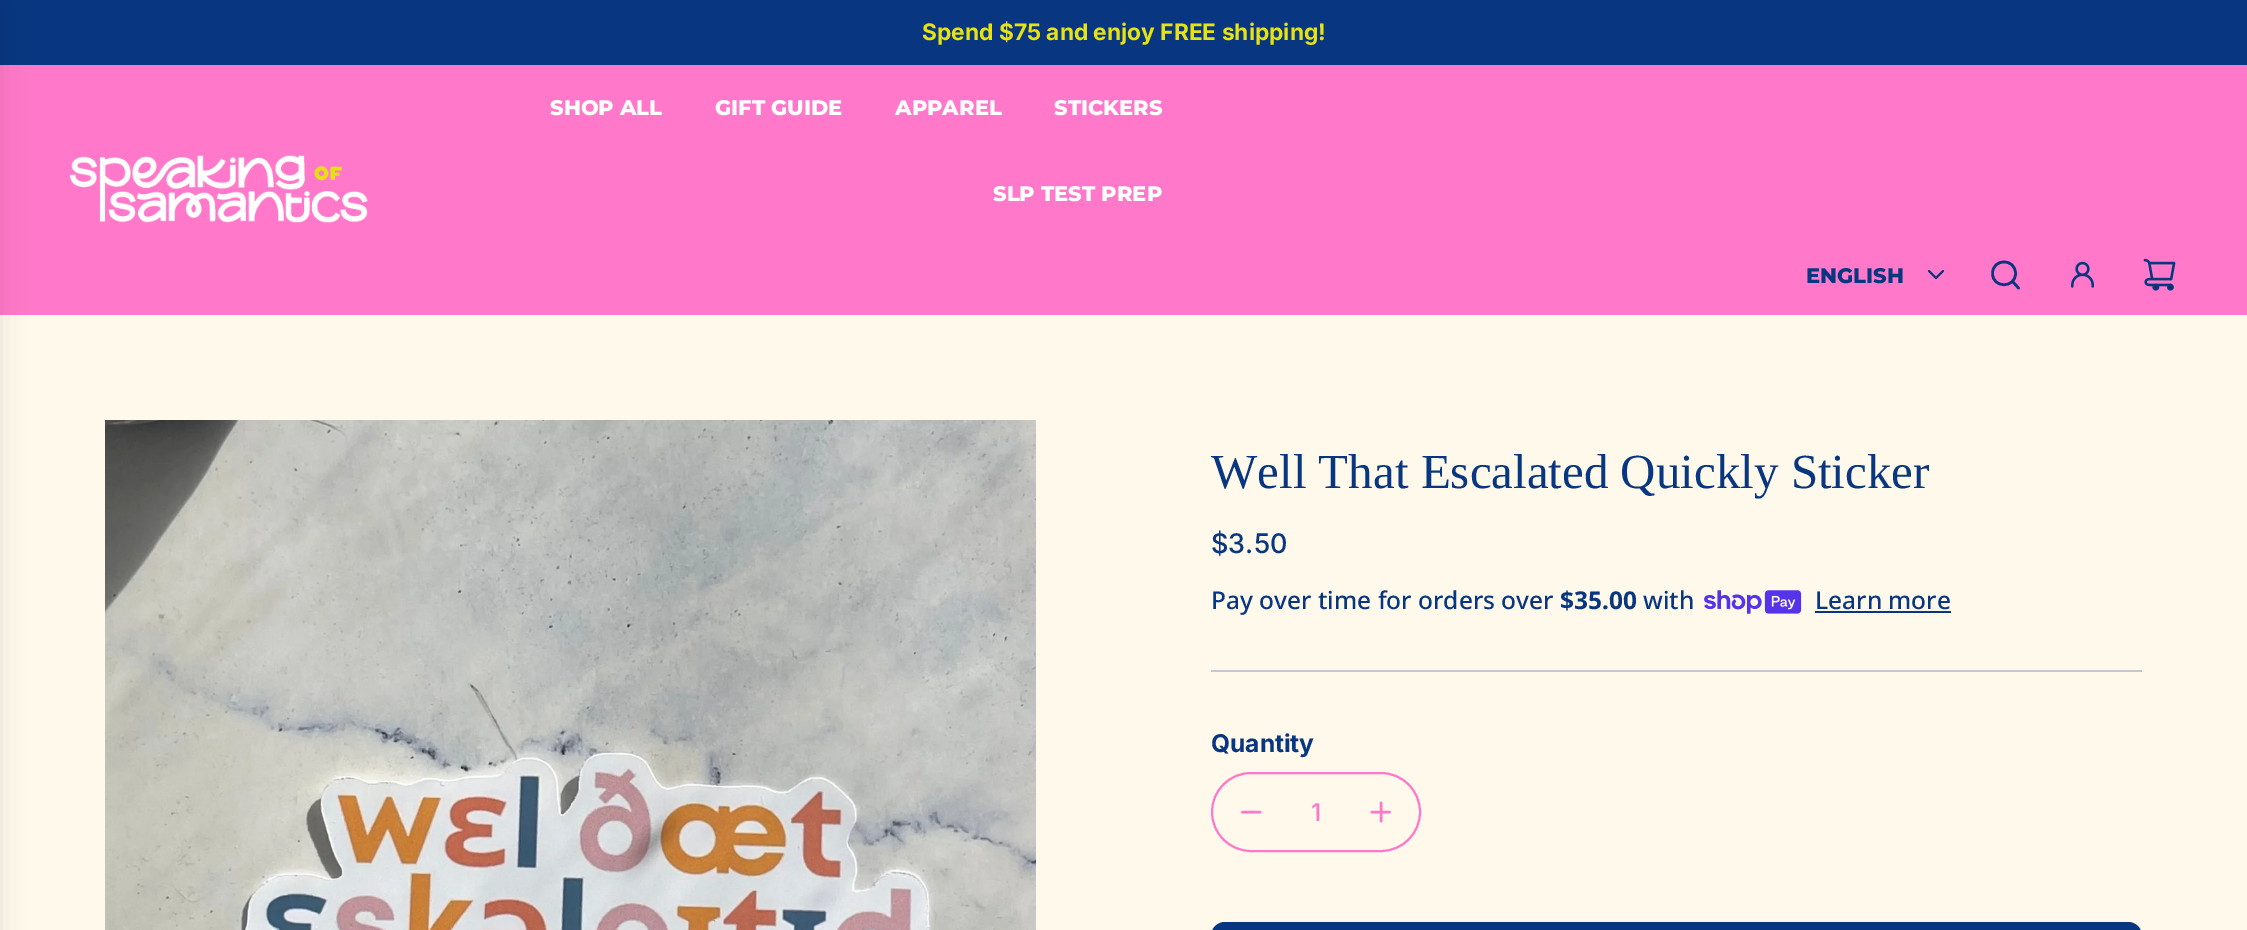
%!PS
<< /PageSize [2247 930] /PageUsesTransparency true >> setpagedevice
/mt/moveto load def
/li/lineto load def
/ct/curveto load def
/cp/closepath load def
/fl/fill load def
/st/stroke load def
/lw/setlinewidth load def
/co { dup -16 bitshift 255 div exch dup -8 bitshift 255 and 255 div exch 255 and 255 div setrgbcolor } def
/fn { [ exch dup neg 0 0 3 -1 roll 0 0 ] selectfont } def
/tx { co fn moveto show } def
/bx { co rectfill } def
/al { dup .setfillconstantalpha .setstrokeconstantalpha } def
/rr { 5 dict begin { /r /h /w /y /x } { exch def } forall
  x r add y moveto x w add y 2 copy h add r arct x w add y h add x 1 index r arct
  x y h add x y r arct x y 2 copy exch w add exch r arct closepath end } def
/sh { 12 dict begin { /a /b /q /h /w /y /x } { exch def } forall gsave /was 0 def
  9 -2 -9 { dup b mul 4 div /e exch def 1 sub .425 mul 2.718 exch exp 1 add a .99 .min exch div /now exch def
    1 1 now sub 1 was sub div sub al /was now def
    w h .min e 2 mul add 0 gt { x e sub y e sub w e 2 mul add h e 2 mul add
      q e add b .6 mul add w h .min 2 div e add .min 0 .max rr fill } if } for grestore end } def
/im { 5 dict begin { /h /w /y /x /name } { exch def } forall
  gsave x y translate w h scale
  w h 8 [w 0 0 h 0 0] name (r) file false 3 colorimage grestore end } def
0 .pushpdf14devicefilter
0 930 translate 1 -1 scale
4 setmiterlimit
0 0 2247 930 16#FFF9EC bx
0 0 2247 65 16#083680 bx
0 65 2247 250 16#FF78C9 bx
16#000000 co
-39 9 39 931 0 13 .1 sh
(media/1.raw) 70 155 298 68 im
16#083680 co
2.1 lw
1 setlinecap
1 setlinejoin
1929 271 mt 1936 278 li 1943 271 li st
2.6 lw
2013 282 mt 2018.5 288 li 1992.5 273.5 mt 1992.5 288.5 2015.5 288.5 2015.5 273.5 ct 2015.5 258 1992.5 258 1992.5 273.5 ct cp st
(media/2.raw) 2071 261 23 27 im
(media/3.raw) 2143 258 33 33 im
(media/4.raw) 105 420 931 510 im
(media/5.raw) 1704 590 98 24 im
1815 611 136 2 16#083680 bx
1211 670 931 2 16#C1C8D1 bx
16#FF78C9 co
2 lw
0 setlinecap
0 setlinejoin
1212 773 208 78 39 rr st
2.6 lw
1 setlinecap
1 setlinejoin
1242.5 812 mt 1260 812 li st
1372 812 mt 1381 812 li 1381 812 mt 1389.5 812 li 1381 812 mt 1381 803 li 1381 812 mt 1381 821 li st
16#083680 co
1211 922 931 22 14 rr fl
(Spend $75 and enjoy FREE shipping!) 922 40 /Inter-Bold 22.75 16#E7E214 tx
(SHOP ALL) 550 115 /Montserrat-ExtraBold 21 16#FFFFFF tx
(GIFT GUIDE) 715 115 /Montserrat-ExtraBold 21 16#FFFFFF tx
(APPAREL) 895 115 /Montserrat-ExtraBold 21 16#FFFFFF tx
(STICKERS) 1054 115 /Montserrat-ExtraBold 21 16#FFFFFF tx
(SLP TEST PREP) 993 201 /Montserrat-ExtraBold 21 16#FFFFFF tx
(ENGLISH) 1806 283 /Montserrat-ExtraBold 21 16#083680 tx
(Well That Escalated Quickly Sticker) 1211 488 /LiberationSerif-Regular 49 16#083680 tx
($3.50) 1211 553 /Inter-Medium 27 16#083680 tx
(Pay over time for orders over) 1211 609 /NotoSans-Medium 24.5 16#083680 tx
($35.00) 1560 609 /NotoSans-Bold 24.5 16#083680 tx
(with) 1643 609 /NotoSans-Medium 24.5 16#083680 tx
(Learn more) 1815 609 /NotoSans-Medium 24.5 16#083680 tx
(Quantity) 1211 752 /Inter-Bold 24.5 16#083680 tx
(1) 1311 821 /Inter-Medium 24.5 16#FF78C9 tx
.poppdf14devicefilter showpage
